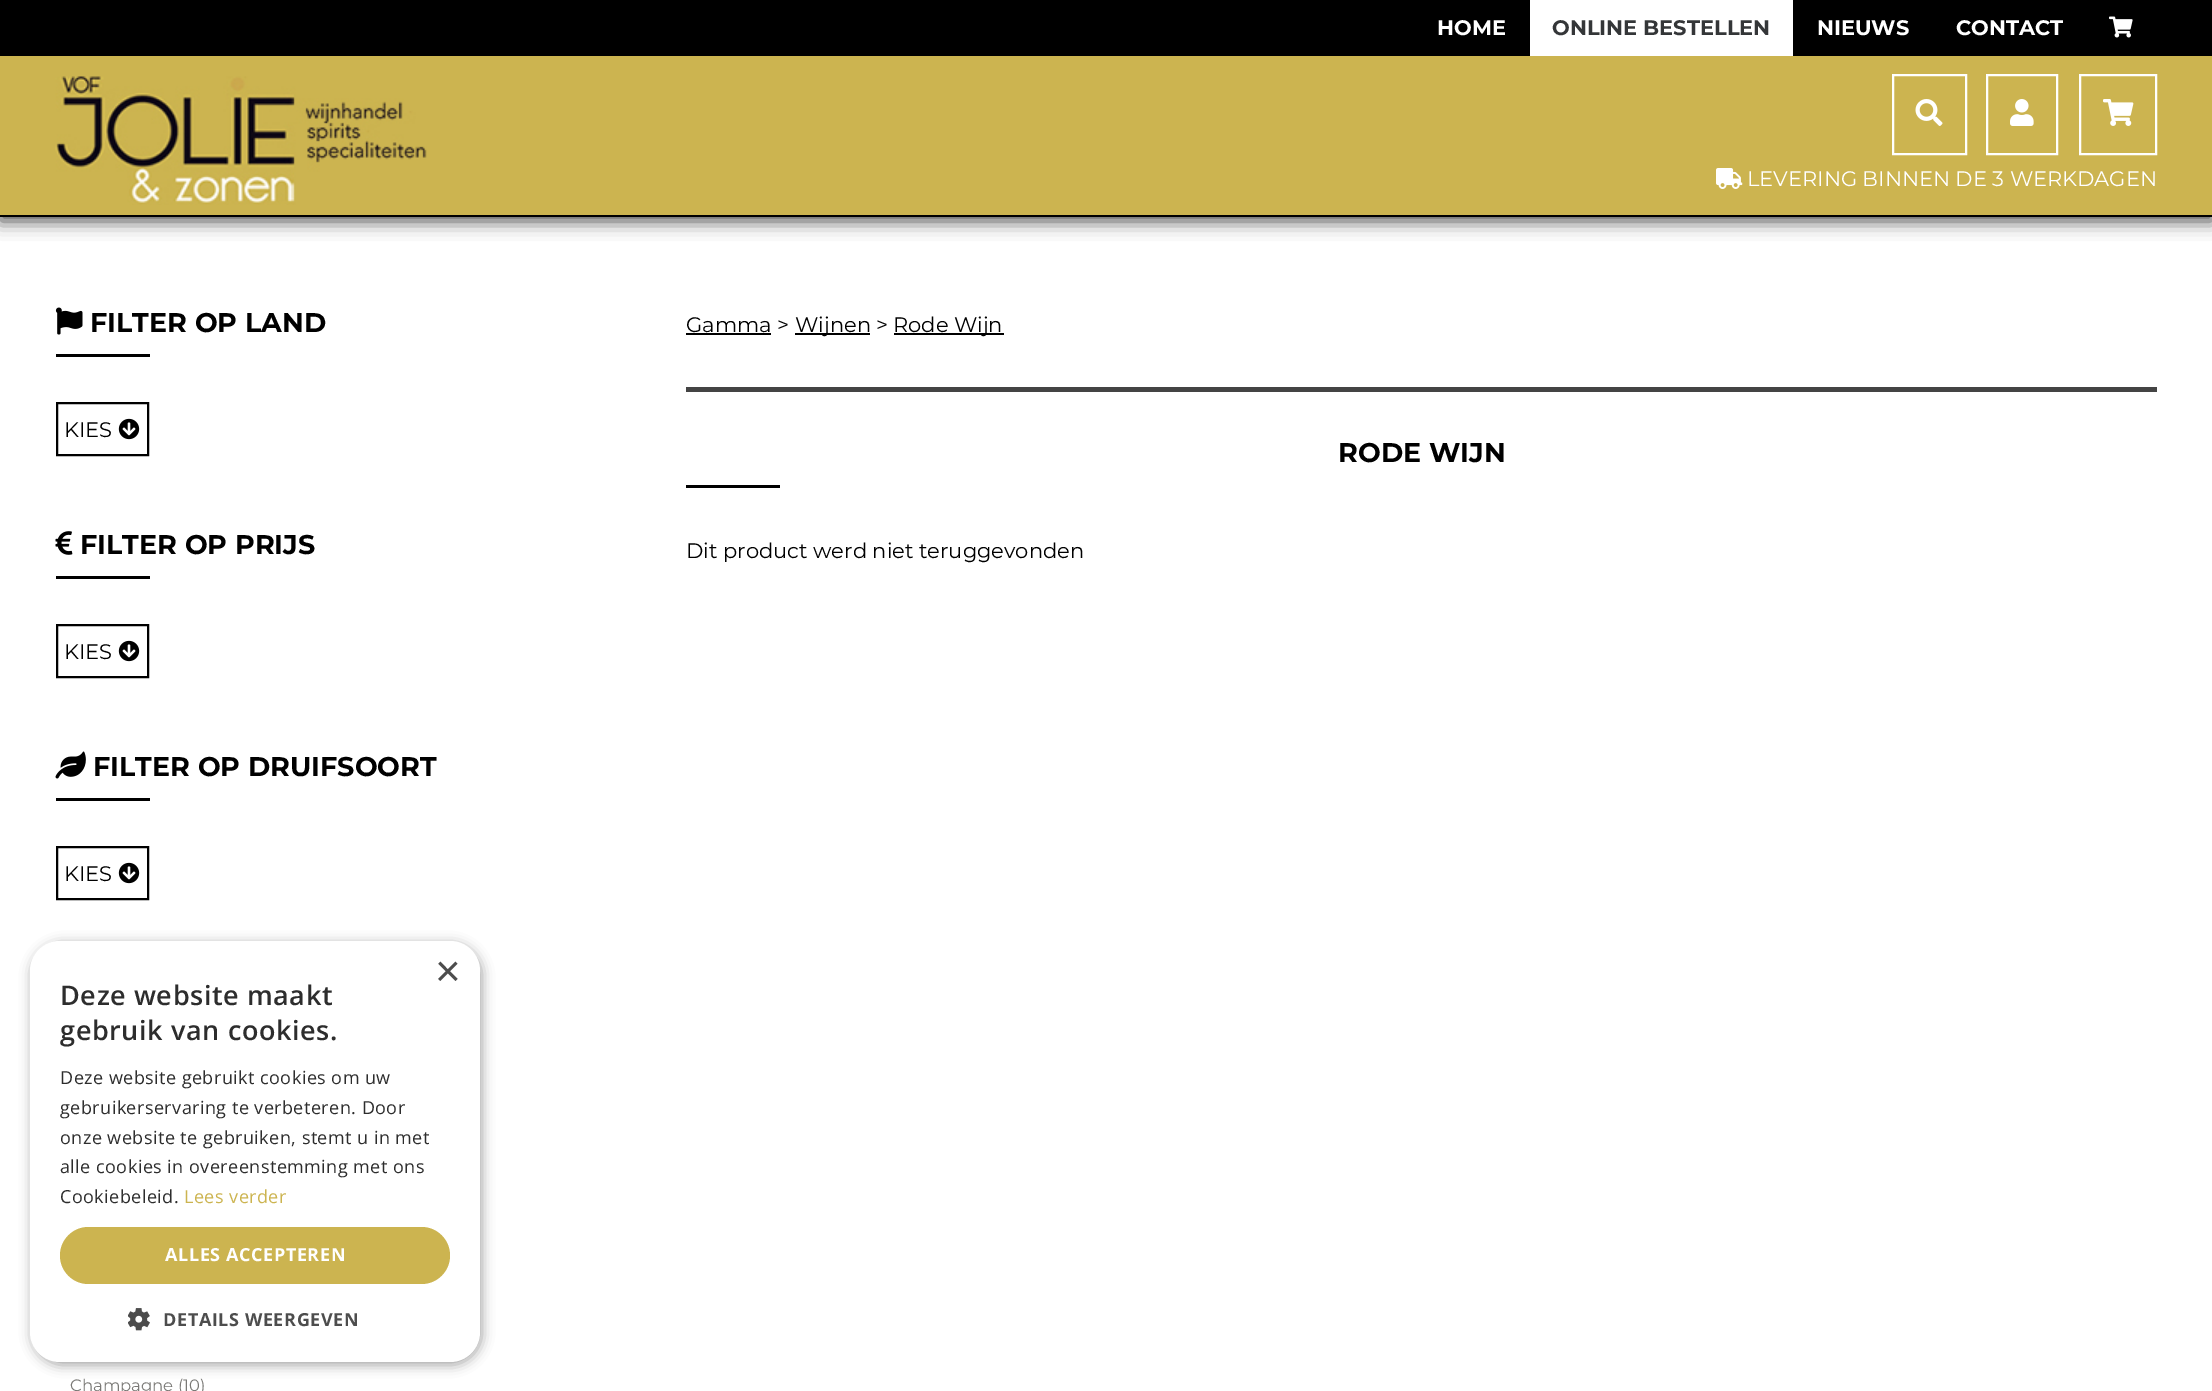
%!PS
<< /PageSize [2212 1391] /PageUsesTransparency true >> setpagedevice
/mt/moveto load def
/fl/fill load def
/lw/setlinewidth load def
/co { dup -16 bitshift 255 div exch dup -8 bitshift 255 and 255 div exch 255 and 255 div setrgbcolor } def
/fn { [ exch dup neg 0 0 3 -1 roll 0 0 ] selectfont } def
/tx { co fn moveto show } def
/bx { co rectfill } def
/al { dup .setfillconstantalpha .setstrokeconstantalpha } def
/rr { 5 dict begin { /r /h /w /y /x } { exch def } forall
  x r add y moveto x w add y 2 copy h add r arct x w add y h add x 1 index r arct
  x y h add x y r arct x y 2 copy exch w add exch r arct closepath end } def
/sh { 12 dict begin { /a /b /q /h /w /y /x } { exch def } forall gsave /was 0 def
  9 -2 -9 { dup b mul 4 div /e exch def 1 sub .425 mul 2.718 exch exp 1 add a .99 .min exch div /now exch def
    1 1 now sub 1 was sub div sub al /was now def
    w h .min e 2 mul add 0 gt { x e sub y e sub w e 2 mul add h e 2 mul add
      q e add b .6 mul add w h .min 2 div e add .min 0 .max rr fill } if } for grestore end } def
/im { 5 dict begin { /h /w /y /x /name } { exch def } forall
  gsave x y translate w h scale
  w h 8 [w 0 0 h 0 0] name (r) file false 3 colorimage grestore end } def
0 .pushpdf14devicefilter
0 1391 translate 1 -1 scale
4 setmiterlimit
0 0 2212 1391 16#FFFFFF bx
16#444444 co
0 60 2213 161 0 9 1 sh
0 0 2212 56 16#000000 bx
1530 0 263 56 16#FFFFFF bx
(media/1.raw) 2109 16 24 22 im
0 56 2212 159 16#CCB450 bx
0 215 2212 2 16#000000 bx
(media/2.raw) 55 76 372 129 im
16#FFFFFF co
2 lw
1893 75 73 79 rectstroke
(media/3.raw) 1915 99 28 27 im
1987 75 70 79 rectstroke
(media/4.raw) 2010 99 24 27 im
2080 75 76 79 rectstroke
(media/5.raw) 2103 99 31 27 im
(media/6.raw) 1716 168 27 21 im
(media/7.raw) 55 307 28 28 im
56 354 94 3 16#000000 bx
57 403 91 52 rectstroke
(media/8.raw) 118 418 22 22 im
(media/9.raw) 55 531 18 24 im
56 576 94 3 16#000000 bx
57 625 91 52 rectstroke
(media/8.raw) 118 640 22 22 im
(media/10.raw) 55 751 31 28 im
56 798 94 3 16#000000 bx
57 847 91 52 rectstroke
(media/8.raw) 118 862 22 22 im
686 333 85 2 16#000000 bx
795 333 75 2 16#000000 bx
894 333 110 2 16#000000 bx
686 387 1471 5 16#444444 bx
686 485 94 3 16#000000 bx
32 944 450 421 30 6 .35 sh
16#FFFFFF co
30 941 450 421 30 rr fl
16#CCB450 co
60 1227 390 57 28.5 rr fl
(media/11.raw) 128 1308 22 23 im
(HOME) 1437 35 /Montserrat-Bold 21 16#FFFFFF tx
(ONLINE BESTELLEN) 1552 35 /Montserrat-Bold 21 16#343638 tx
(NIEUWS) 1817 35 /Montserrat-Bold 21 16#FFFFFF tx
(CONTACT) 1956 35 /Montserrat-Bold 21 16#FFFFFF tx
(LEVERING BINNEN DE 3 WERKDAGEN) 1747 186 /Montserrat-Regular 21 16#FFFFFF tx
(FILTER OP LAND) 90 332 /Montserrat-Bold 27 16#000000 tx
(KIES) 64 437 /Montserrat-Regular 21 16#000000 tx
(FILTER OP PRIJS) 80 554 /Montserrat-Bold 27 16#000000 tx
(KIES) 64 659 /Montserrat-Regular 21 16#000000 tx
(FILTER OP DRUIFSOORT) 93 776 /Montserrat-Bold 27 16#000000 tx
(KIES) 64 881 /Montserrat-Regular 21 16#000000 tx
(Champagne \(10\)) 70 1391 /Montserrat-Regular 16.5 16#7A7976 tx
(Gamma >) 686 332 /Montserrat-Regular 21 16#000000 tx
(Wijnen >) 795 332 /Montserrat-Regular 21 16#000000 tx
(Rode Wijn) 893 332 /Montserrat-Regular 21 16#000000 tx
(RODE WIJN) 1338 462 /Montserrat-Bold 27 16#000000 tx
(Dit product werd niet teruggevonden) 686 558 /Montserrat-Regular 21 16#000000 tx
(×) 435 986 /LiberationSans-Regular 44 16#4D4D4D tx
/OpenSans-SemiBold 27 fn
16#2D2D2D co
60 1005 mt .6 0 (Deze website maakt) ashow
60 1040 mt .6 0 (gebruik van cookies.) ashow
/OpenSans-Regular 18 fn
60 1084 mt .45 0 (Deze website gebruikt cookies om uw) ashow
60 1114 mt .45 0 (gebruikerservaring te verbeteren. Door) ashow
60 1144 mt .45 0 (onze website te gebruiken, stemt u in met) ashow
60 1173 mt .45 0 (alle cookies in overeenstemming met ons) ashow
60 1203 mt .45 0 (Cookiebeleid.) ashow
16#CCB450 co
184 1203 mt .45 0 (Lees verder) ashow
/OpenSans-Bold 18 fn
16#FFFFFF co
165 1261 mt .6 0 (ALLES ACCEPTEREN) ashow
16#4D4D4D co
163 1326 mt .6 0 (DETAILS WEERGEVEN) ashow
.poppdf14devicefilter showpage
